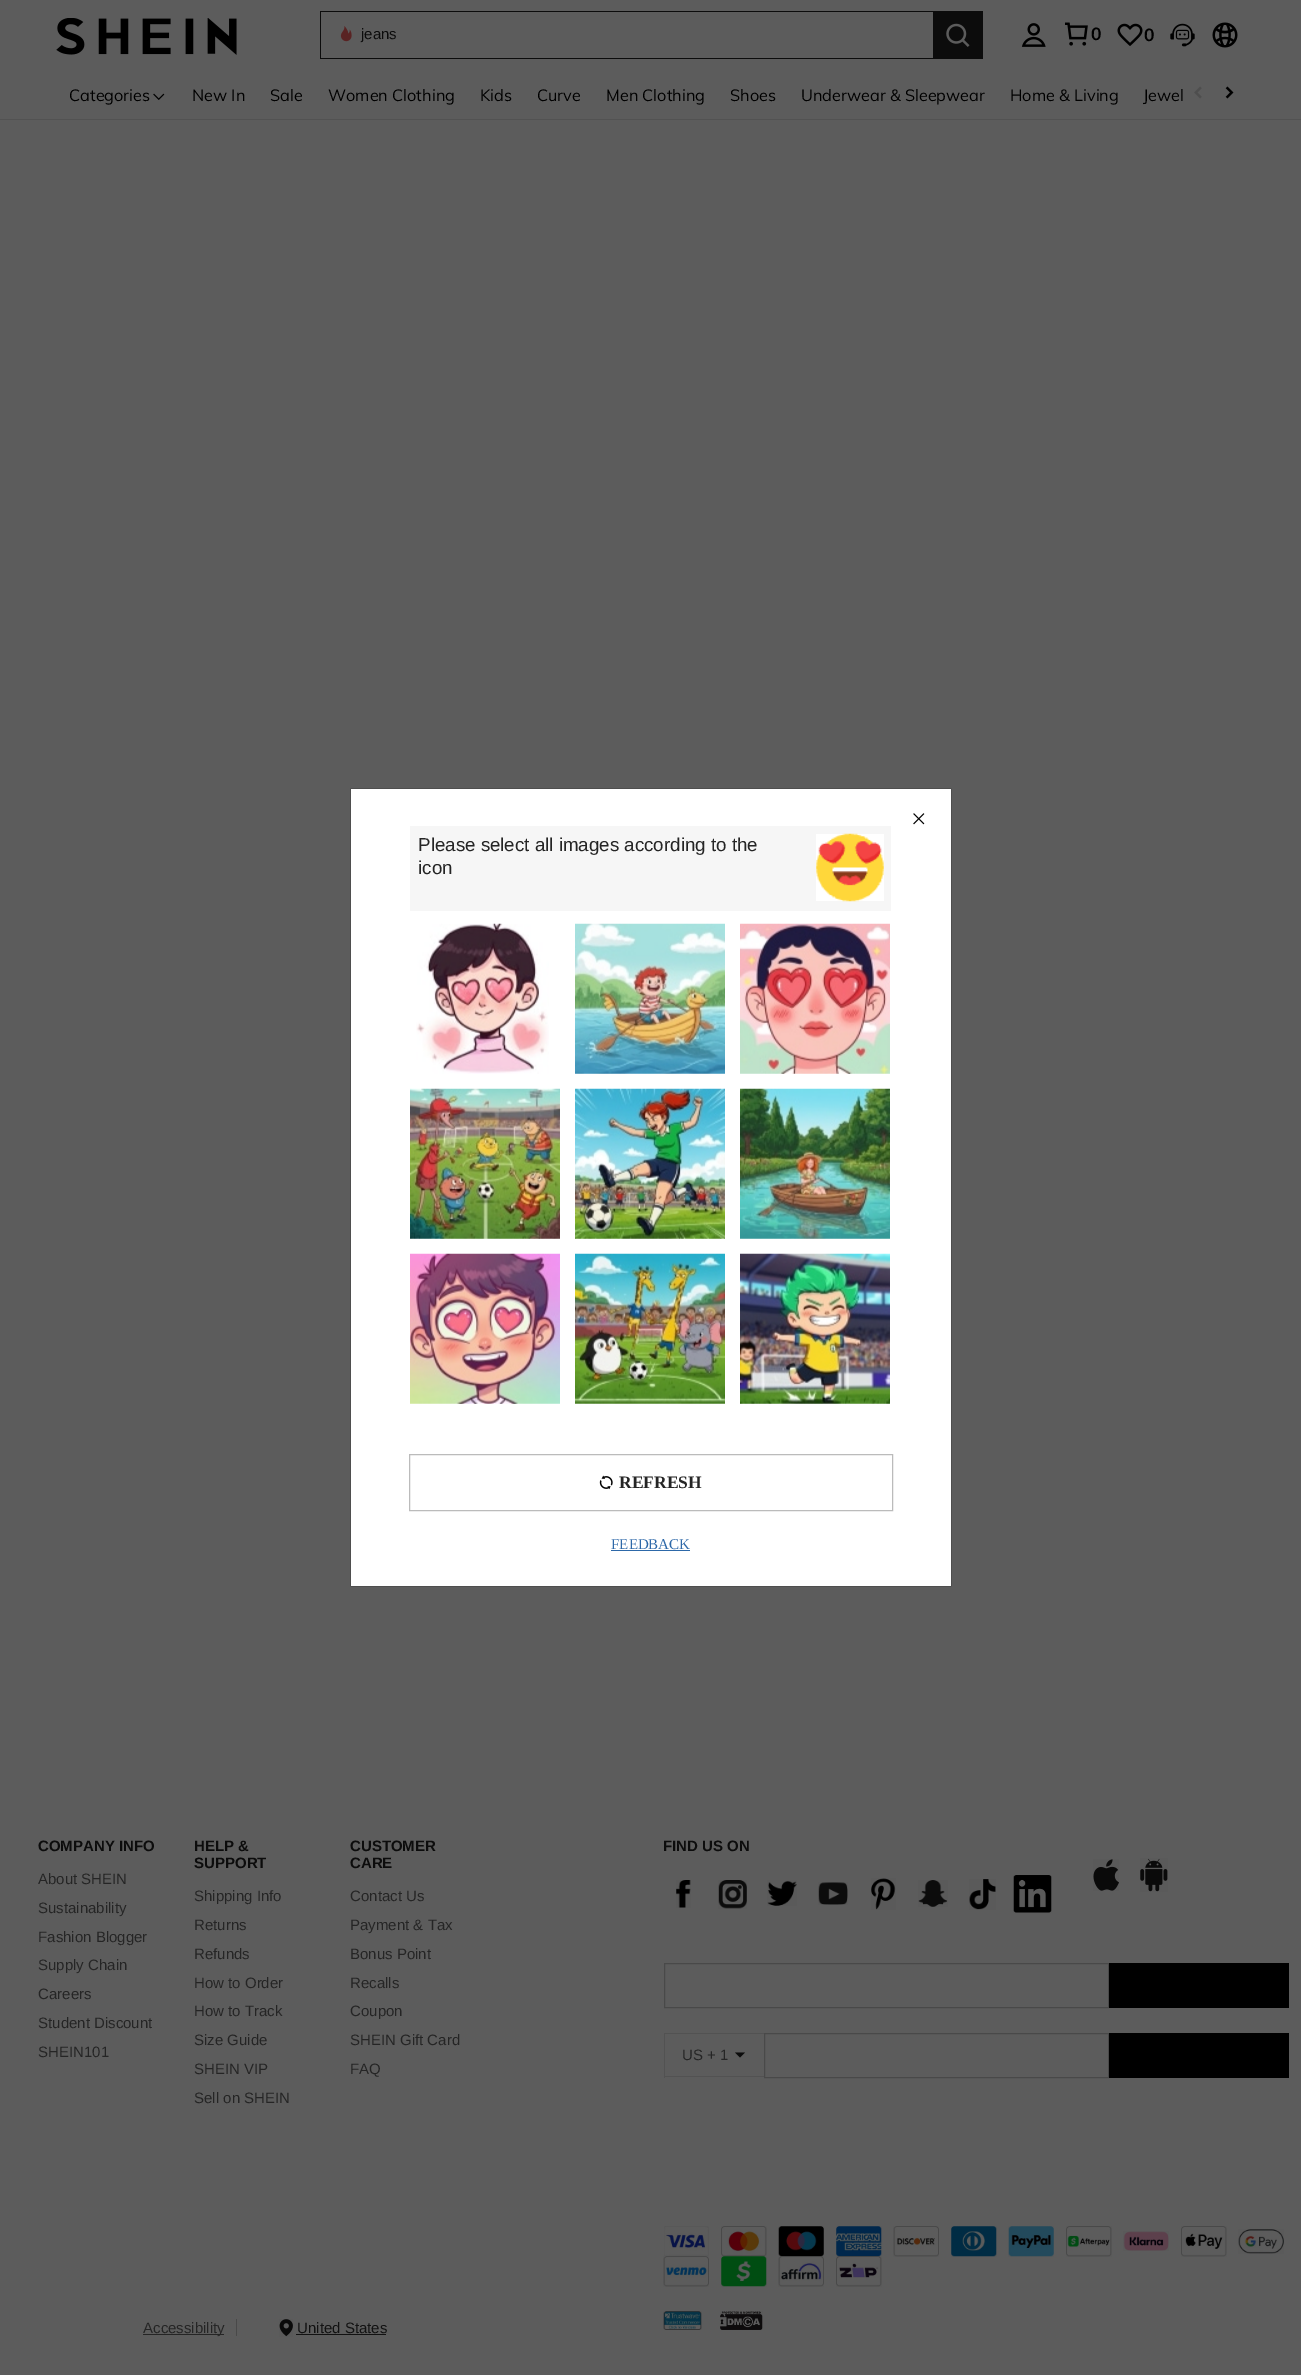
%!PS
<< /PageSize [1301 2375] /PageUsesTransparency true >> setpagedevice
/mt/moveto load def
/li/lineto load def
/cp/closepath load def
/fl/fill load def
/co { dup -16 bitshift 255 div exch dup -8 bitshift 255 and 255 div exch 255 and 255 div setrgbcolor } def
/fn { [ exch dup neg 0 0 3 -1 roll 0 0 ] selectfont } def
/tx { co fn moveto show } def
/bx { co rectfill } def
/al { dup .setfillconstantalpha .setstrokeconstantalpha } def
/rr { 5 dict begin { /r /h /w /y /x } { exch def } forall
  x r add y moveto x w add y 2 copy h add r arct x w add y h add x 1 index r arct
  x y h add x y r arct x y 2 copy exch w add exch r arct closepath end } def
/sh { 12 dict begin { /a /b /q /h /w /y /x } { exch def } forall gsave /was 0 def
  9 -2 -9 { dup b mul 4 div /e exch def 1 sub .425 mul 2.718 exch exp 1 add a .99 .min exch div /now exch def
    1 1 now sub 1 was sub div sub al /was now def
    w h .min e 2 mul add 0 gt { x e sub y e sub w e 2 mul add h e 2 mul add
      q e add b .6 mul add w h .min 2 div e add .min 0 .max rr fill } if } for grestore end } def
/im { 5 dict begin { /h /w /y /x /name } { exch def } forall
  gsave x y translate w h scale
  w h 8 [w 0 0 h 0 0] name (r) file false 3 colorimage grestore end } def
0 .pushpdf14devicefilter
0 2375 translate 1 -1 scale
4 setmiterlimit
0 0 1301 2375 16#5C5C5C bx
(media/1.raw) 56 18 181 37 im
320 11 613 1 16#0C0C0C bx
320 58 613 1 16#0C0C0C bx
320 11 1 48 16#0C0C0C bx
(media/2.raw) 340 26 12 16 im
933 11 50 48 16#0C0C0C bx
(media/3.raw) 946 23 24 24 im
(media/4.raw) 1021 23 25 24 im
(media/5.raw) 1065 22 23 24 im
(media/6.raw) 1117 23 26 23 im
(media/7.raw) 1170 23 25 24 im
(media/8.raw) 1212 22 26 26 im
0 119 1301 1 16#525252 bx
(media/9.raw) 153 93 12 7 im
(media/10.raw) 1194 86 8 13 im
(media/11.raw) 1225 86 9 13 im
(media/12.raw) 676 1880 15 28 im
(media/13.raw) 718 1880 29 29 im
(media/14.raw) 767 1880 30 26 im
(media/15.raw) 818 1882 30 23 im
(media/16.raw) 871 1878 25 32 im
(media/17.raw) 918 1880 30 27 im
(media/18.raw) 969 1879 27 31 im
(media/19.raw) 1013 1875 39 38 im
(media/20.raw) 1093 1859 26 32 im
(media/21.raw) 1140 1858 28 34 im
16#494949 co
664.5 1963.5 444 44 rectstroke
1109 1963 180 45 16#000000 bx
664 2033 100 1 16#525252 bx
664 2076 100 1 16#525252 bx
664 2033 1 45 16#525252 bx
16#0C0C0C co
735 2052.5 mt 745 2052.5 li 740 2057.5 li cp fl
16#494949 co
764.5 2033.5 344 44 rectstroke
1109 2033 180 45 16#000000 bx
(media/22.raw) 664 2226 45 30 im
(media/23.raw) 721 2226 46 31 im
(media/24.raw) 778 2226 46 31 im
(media/25.raw) 836 2226 46 31 im
(media/26.raw) 893 2226 46 31 im
(media/27.raw) 951 2226 46 31 im
(media/28.raw) 1008 2226 46 31 im
(media/29.raw) 1066 2226 46 31 im
(media/30.raw) 1123 2231 46 20 im
(media/31.raw) 1181 2226 46 31 im
(media/32.raw) 1238 2229 46 25 im
(media/33.raw) 663 2256 46 31 im
(media/34.raw) 721 2256 46 31 im
(media/35.raw) 778 2256 46 31 im
(media/36.raw) 836 2256 46 31 im
236 2319 1 17 16#494949 bx
143 2334 81 1 16#252525 bx
(media/37.raw) 279 2319 14 18 im
296 2334 90 1 16#121212 bx
(media/38.raw) 663 2311 39 19 im
(media/39.raw) 720 2311 43 19 im
16#000000 co
351 789 600 797 0 .5 .3 sh
351 789 600 797 0 .5 .3 sh
351 789 600 797 16#FFFFFF bx
(media/40.raw) 913 813 12 12 im
410 826 481 85 16#F6F6F6 bx
816 834 68 67 16#FFFFFF bx
(media/41.raw) 816 833 68 69 im
(media/42.raw) 416 923 133 151 im
(media/43.raw) 575 923 150 151 im
(media/44.raw) 740 923 150 151 im
(media/45.raw) 410 1088 150 151 im
(media/46.raw) 575 1088 150 151 im
(media/47.raw) 740 1088 150 151 im
(media/48.raw) 410 1253 150 151 im
(media/49.raw) 575 1253 150 151 im
(media/50.raw) 740 1253 150 151 im
16#BBBBBB co
409.5 1454.5 483 56 rectstroke
(media/51.raw) 599 1475 14 15 im
611 1550 79 1 16#2D68A8 bx
(jeans) 361 39 /LiberationSans-Regular 15 16#0C0C0C tx
(0) 1091 40 /Muli-Bold 17.5 16#000000 tx
(0) 1144 41 /Muli-Bold 17.5 16#000000 tx
(Categories) 69 101 /Muli-Regular 16.25 16#000000 tx
(New In) 192 101 /Muli-Regular 16.25 16#000000 tx
(Sale) 270 101 /Muli-Regular 16.25 16#000000 tx
(Women Clothing) 328 101 /Muli-Regular 16.25 16#000000 tx
(Kids) 480 101 /Muli-Regular 16.25 16#000000 tx
(Curve) 537 101 /Muli-Regular 16.25 16#000000 tx
(Men Clothing) 606 101 /Muli-Regular 16.25 16#000000 tx
(Shoes) 730 101 /Muli-Regular 16.25 16#000000 tx
(Underwear & Sleepwear) 801 101 /Muli-Regular 16.25 16#000000 tx
(Home & Living) 1010 101 /Muli-Regular 16.25 16#000000 tx
(Jewel) 1143 101 /Muli-Regular 16.25 16#000000 tx
1183 89 1 12 16#5C5C5C bx
(COMPANY INFO) 38 1851 /LiberationSans-Bold 15 16#0C0C0C tx
(About SHEIN) 38 1884 /LiberationSans-Regular 15 16#252525 tx
(Sustainability) 38 1913 /LiberationSans-Regular 15 16#252525 tx
(Fashion Blogger) 38 1942 /LiberationSans-Regular 15 16#252525 tx
(Supply Chain) 38 1970 /LiberationSans-Regular 15 16#252525 tx
(Careers) 38 1999 /LiberationSans-Regular 15 16#252525 tx
(Student Discount) 38 2028 /LiberationSans-Regular 15 16#252525 tx
(SHEIN101) 38 2057 /LiberationSans-Regular 15 16#252525 tx
(HELP &) 194 1851 /LiberationSans-Bold 15 16#0C0C0C tx
(SUPPORT) 194 1868 /LiberationSans-Bold 15 16#0C0C0C tx
(Shipping Info) 194 1901 /LiberationSans-Regular 15 16#252525 tx
(Returns) 194 1930 /LiberationSans-Regular 15 16#252525 tx
(Refunds) 194 1959 /LiberationSans-Regular 15 16#252525 tx
(How to Order) 194 1988 /LiberationSans-Regular 15 16#252525 tx
(How to Track) 194 2016 /LiberationSans-Regular 15 16#252525 tx
(Size Guide) 194 2045 /LiberationSans-Regular 15 16#252525 tx
(SHEIN VIP) 194 2074 /LiberationSans-Regular 15 16#252525 tx
(Sell on SHEIN) 194 2103 /LiberationSans-Regular 15 16#252525 tx
(CUSTOMER) 350 1851 /LiberationSans-Bold 15 16#0C0C0C tx
(CARE) 350 1868 /LiberationSans-Bold 15 16#0C0C0C tx
(Contact Us) 350 1901 /LiberationSans-Regular 15 16#252525 tx
(Payment & Tax) 350 1930 /LiberationSans-Regular 15 16#252525 tx
(Bonus Point) 350 1959 /LiberationSans-Regular 15 16#252525 tx
(Recalls) 350 1988 /LiberationSans-Regular 15 16#252525 tx
(Coupon) 350 2016 /LiberationSans-Regular 15 16#252525 tx
(SHEIN Gift Card) 350 2045 /LiberationSans-Regular 15 16#252525 tx
(FAQ) 350 2074 /LiberationSans-Regular 15 16#252525 tx
(FIND US ON) 663 1851 /LiberationSans-Bold 15 16#0C0C0C tx
(US + 1) 682 2060 /LiberationSans-Regular 15 16#252525 tx
(Accessibility) 143 2333 /LiberationSans-Regular 15 16#252525 tx
(United States) 297 2333 /LiberationSans-Regular 15 16#121212 tx
(Please select all images according to the) 418 851 /LiberationSans-Regular 18.75 16#252525 tx
(icon) 418 874 /LiberationSans-Regular 18.75 16#252525 tx
(REFRESH) 619 1488 /LiberationSerif-Bold 17.5 16#252525 tx
(FEEDBACK) 611 1549 /LiberationSerif-Regular 15 16#2D68A8 tx
.poppdf14devicefilter showpage
